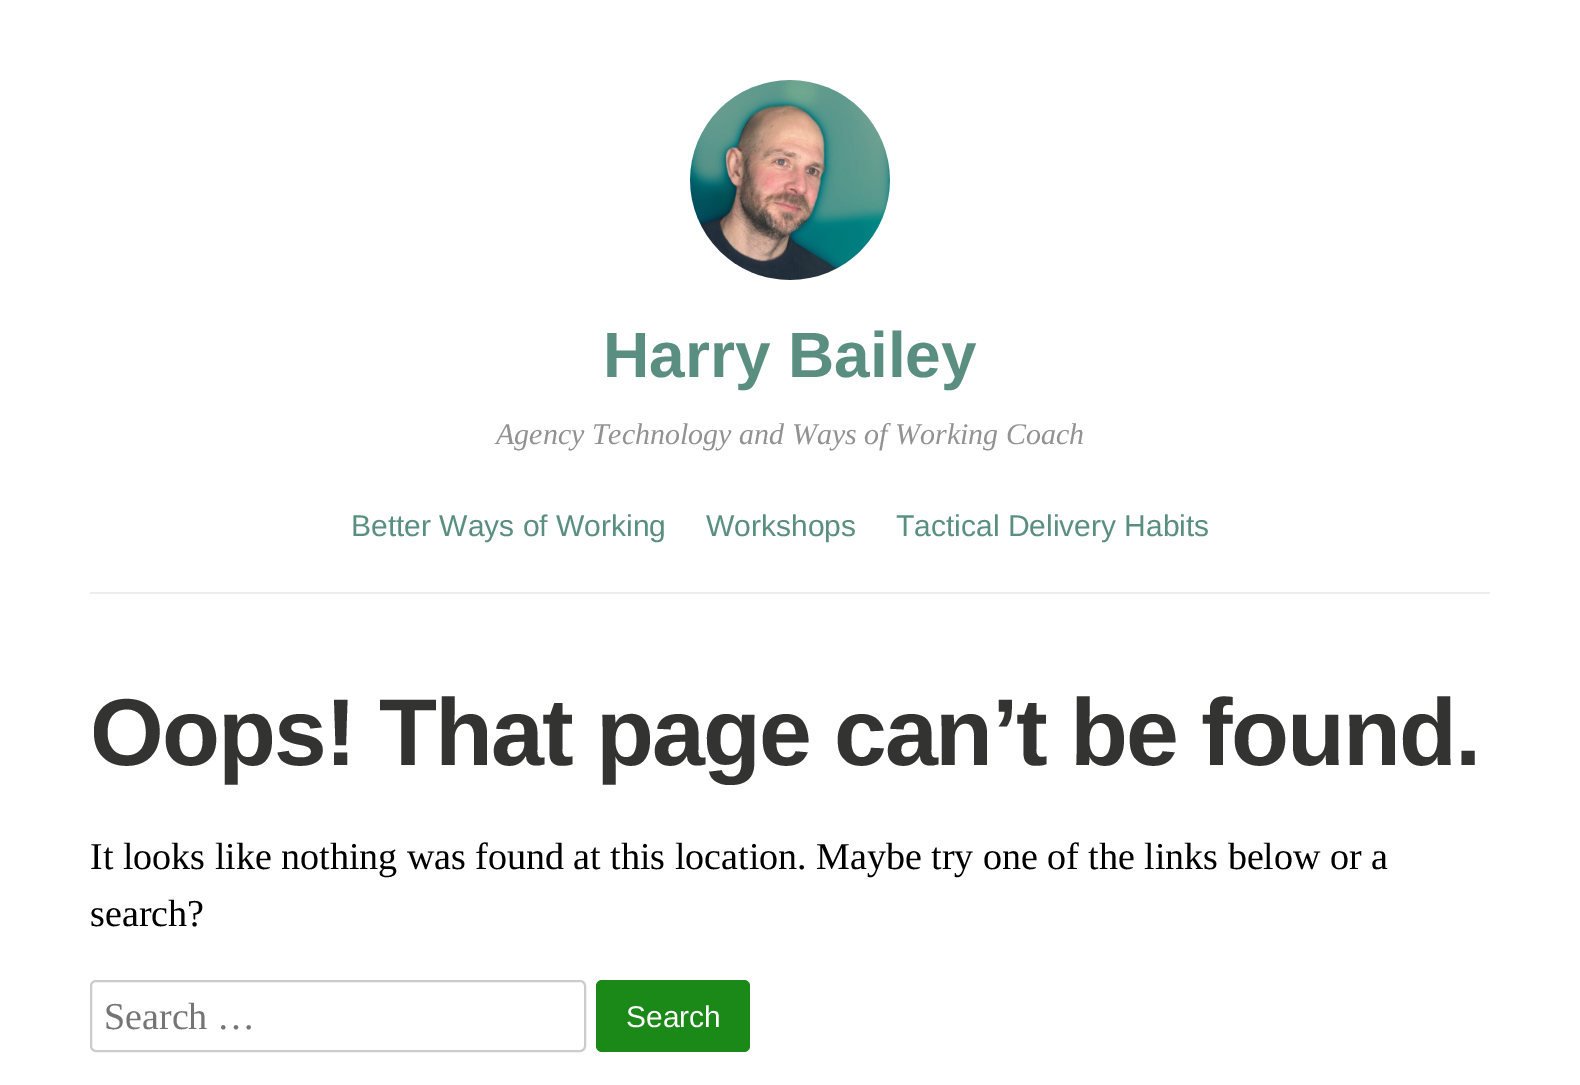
%!PS
<< /PageSize [1580 1085] >> setpagedevice
/mt/moveto load def
/fl/fill load def
/st/stroke load def
/lw/setlinewidth load def
/co { dup -16 bitshift 255 div exch dup -8 bitshift 255 and 255 div exch 255 and 255 div setrgbcolor } def
/fn { [ exch dup neg 0 0 3 -1 roll 0 0 ] selectfont } def
/tx { co fn moveto show } def
/bx { co rectfill } def
/rr { 5 dict begin { /r /h /w /y /x } { exch def } forall
  x r add y moveto x w add y 2 copy h add r arct x w add y h add x 1 index r arct
  x y h add x y r arct x y 2 copy exch w add exch r arct closepath end } def
/im { 5 dict begin { /h /w /y /x /name } { exch def } forall
  gsave x y translate w h scale
  w h 8 [w 0 0 h 0 0] name (r) file false 3 colorimage grestore end } def
0 1085 translate 1 -1 scale
4 setmiterlimit
0 0 1580 1085 16#FFFFFF bx
(media/1.raw) 690 80 200 200 im
90 592 1400 2 16#EEEEEE bx
16#CCCCCC co
2 lw
91 981 494 70 5 rr st
16#1A8917 co
596 980 154 72 6 rr fl
(Harry Bailey) 603 377 /LiberationSans-Bold 64 16#598E80 tx
(Agency Technology and Ways of Working Coach) 496 444 /LiberationSerif-Italic 30 16#929292 tx
(Better Ways of Working) 351 536 /LiberationSans-Regular 30 16#598E80 tx
(Workshops) 706 536 /LiberationSans-Regular 30 16#598E80 tx
(Tactical Delivery Habits) 896 536 /LiberationSans-Regular 30 16#598E80 tx
/LiberationSans-Bold 95 fn
16#333332 co
90 765 mt -2 0 (Oops! That page can’t be found.) ashow
(It looks like nothing was found at this location. Maybe try one of the links below or a) 90 869 /LiberationSerif-Regular 38 16#000000 tx
(search?) 90 926 /LiberationSerif-Regular 38 16#000000 tx
(Search …) 104 1029 /LiberationSerif-Regular 38 16#757575 tx
(Search) 626 1027 /LiberationSans-Regular 30 16#FFFFFF tx
showpage
